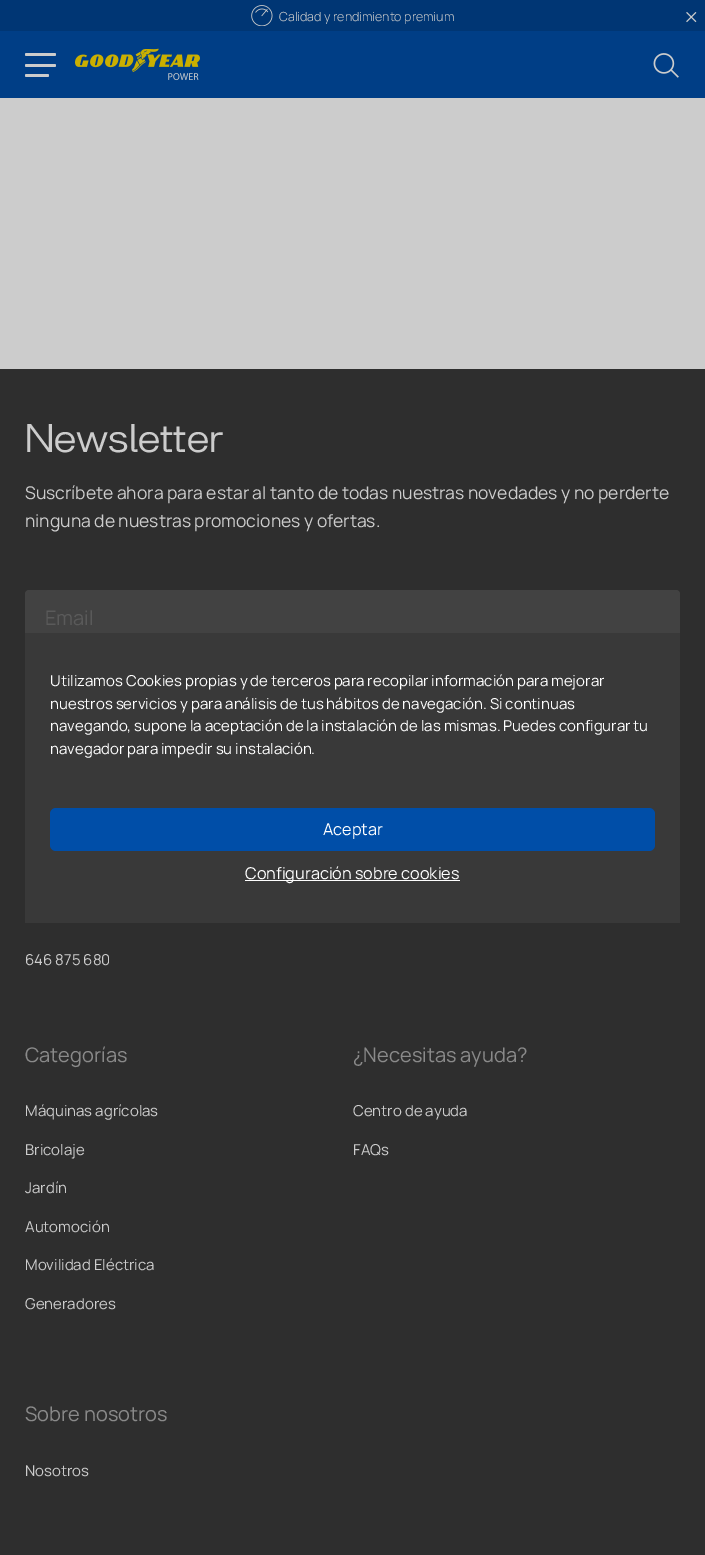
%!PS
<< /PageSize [705 1555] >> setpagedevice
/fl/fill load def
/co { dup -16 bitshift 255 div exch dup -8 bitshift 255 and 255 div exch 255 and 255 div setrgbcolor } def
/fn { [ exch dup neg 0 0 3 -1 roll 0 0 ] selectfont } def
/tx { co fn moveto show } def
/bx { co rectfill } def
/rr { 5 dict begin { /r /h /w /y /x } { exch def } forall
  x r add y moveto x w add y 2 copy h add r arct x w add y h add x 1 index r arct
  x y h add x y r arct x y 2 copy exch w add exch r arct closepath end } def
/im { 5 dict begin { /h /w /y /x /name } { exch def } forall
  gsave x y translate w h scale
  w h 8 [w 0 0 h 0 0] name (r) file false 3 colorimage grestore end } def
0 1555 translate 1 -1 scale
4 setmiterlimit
0 0 705 1555 16#CCCCCC bx
0 31 705 67 16#003E86 bx
0 0 705 31 16#003674 bx
(media/1.raw) 251 5 22 21 im
(media/2.raw) 686 12 11 11 im
16#CCCCCC co
25 53 31 3 1.5 rr fl
25 64 31 3 1.5 rr fl
25 74 24 3 1.5 rr fl
(media/3.raw) 75 48 125 33 im
(media/4.raw) 653 53 26 25 im
0 369 705 1186 16#2E2E2E bx
16#424242 co
25 590 655 56 4 rr fl
25 633 655 290 16#393939 bx
16#004EA8 co
50 808 605 43 6 rr fl
245 880 215 1 16#FFFFFF bx
(Calidad y rendimiento premium) 279 21 /Manrope-Light 12.5 16#CCCCCC tx
(Newsletter) 25 452 /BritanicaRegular-Regular 43.75 16#CCCCCC tx
(Suscríbete ahora para estar al tanto de todas nuestras novedades y no perderte) 25 499 /Manrope-Regular 17.5 16#CCCCCC tx
(ninguna de nuestras promociones y ofertas.) 25 527 /Manrope-Regular 17.5 16#CCCCCC tx
(Email) 45 625 /Manrope-Regular 20 16#5A5A5A tx
(646 875 680) 25 965 /Manrope-Regular 15 16#CCCCCC tx
(Categorías) 25 1062 /Manrope-Regular 20 16#8A8A8A tx
(Máquinas agrícolas) 25 1116 /Manrope-Regular 15 16#CCCCCC tx
(Bricolaje) 25 1155 /Manrope-Regular 15 16#CCCCCC tx
(Jardín) 25 1193 /Manrope-Regular 15 16#CCCCCC tx
(Automoción) 25 1232 /Manrope-Regular 15 16#CCCCCC tx
(Movilidad Eléctrica) 25 1270 /Manrope-Regular 15 16#CCCCCC tx
(Generadores) 25 1309 /Manrope-Regular 15 16#CCCCCC tx
(¿Necesitas ayuda?) 353 1062 /Manrope-Regular 20 16#8A8A8A tx
(Centro de ayuda) 353 1116 /Manrope-Regular 15 16#CCCCCC tx
(FAQs) 353 1155 /Manrope-Regular 15 16#CCCCCC tx
(Sobre nosotros) 25 1421 /Manrope-Regular 20 16#8A8A8A tx
(Nosotros) 25 1476 /Manrope-Regular 15 16#CCCCCC tx
(Utilizamos Cookies propias y de terceros para recopilar información para mejorar) 50 686 /Manrope-Regular 15 16#FFFFFF tx
(nuestros servicios y para análisis de tus hábitos de navegación. Si continuas) 50 709 /Manrope-Regular 15 16#FFFFFF tx
(navegando, supone la aceptación de la instalación de las mismas. Puedes configurar tu) 50 731 /Manrope-Regular 15 16#FFFFFF tx
(navegador para impedir su instalación.) 50 754 /Manrope-Regular 15 16#FFFFFF tx
(Aceptar) 323 835 /Manrope-Regular 16.25 16#FFFFFF tx
(Configuración sobre cookies) 245 879 /Manrope-Regular 16.25 16#FFFFFF tx
showpage
